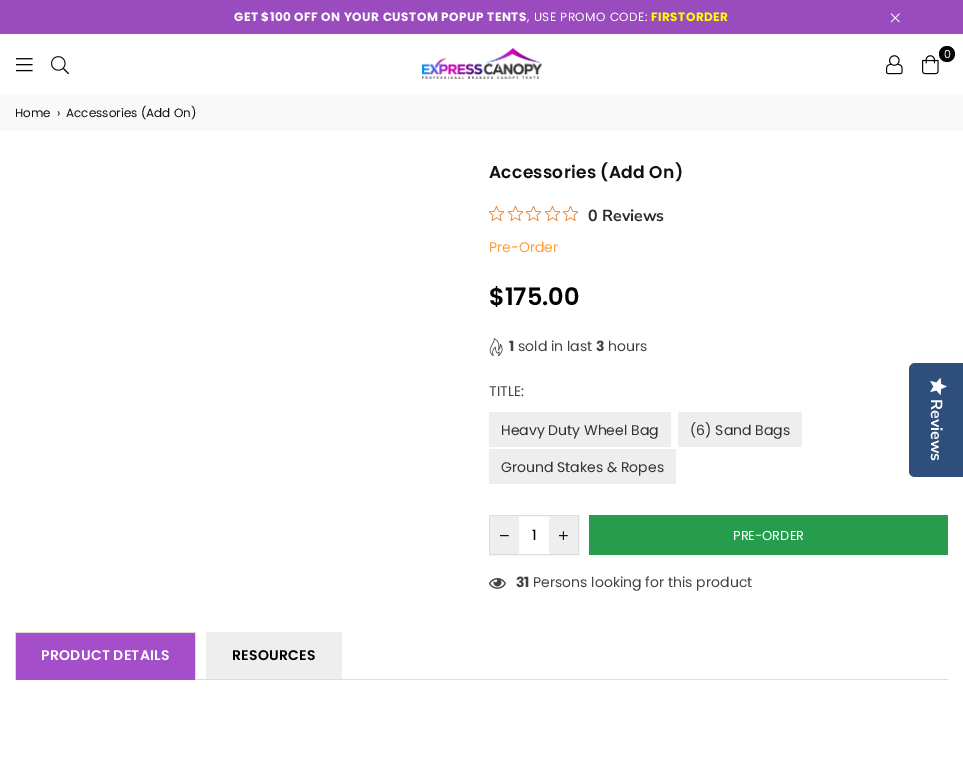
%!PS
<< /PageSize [963 780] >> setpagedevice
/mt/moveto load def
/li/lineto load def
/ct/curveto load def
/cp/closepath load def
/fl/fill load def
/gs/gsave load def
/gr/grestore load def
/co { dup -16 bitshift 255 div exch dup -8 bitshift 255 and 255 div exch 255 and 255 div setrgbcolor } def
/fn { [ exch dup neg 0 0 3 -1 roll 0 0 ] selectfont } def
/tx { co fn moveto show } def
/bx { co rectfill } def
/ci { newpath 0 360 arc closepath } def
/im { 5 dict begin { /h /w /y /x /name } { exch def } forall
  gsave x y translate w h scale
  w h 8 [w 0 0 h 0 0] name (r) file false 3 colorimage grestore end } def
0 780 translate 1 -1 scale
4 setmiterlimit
0 0 963 780 16#FFFFFF bx
0 0 963 34 16#9A4CBE bx
(media/1.raw) 890 13 10 10 im
(media/2.raw) 422 48 120 31 im
16#030505 co
947 54 8 ci fl
(media/3.raw) 922 55 17 20 im
(media/4.raw) 886 55 17 20 im
(media/5.raw) 16 58 17 14 im
(media/6.raw) 51 56 18 19 im
0 94 963 37 16#F9F9F9 bx
(media/7.raw) 489 206 15 15 im
(media/7.raw) 508 206 15 15 im
(media/7.raw) 526 206 15 15 im
(media/7.raw) 545 206 15 15 im
(media/7.raw) 563 206 15 15 im
(media/8.raw) 489 338 14 19 im
489 412 182 35 16#EEEEEE bx
678 412 124 35 16#EEEEEE bx
489 449 187 35 16#EEEEEE bx
16#DDDDDD co
489.5 515.5 89 39 rectstroke
490 516 29 38 16#EEEEEE bx
(media/9.raw) 500 535 9 2 im
549 516 29 38 16#EEEEEE bx
(media/10.raw) 559 531 9 9 im
589 515 359 40 16#269D4D bx
(media/11.raw) 489 578 17 11 im
15 679 933 1 16#DDDDDD bx
16 633 179 47 16#A44ECA bx
15 632 181 1 16#DDDDDD bx
195 632 1 47 16#DDDDDD bx
15 632 1 47 16#DDDDDD bx
206 632 136 47 16#EEEEEE bx
16#2E4F7C co
963 363 mt 963 477 li 915 477 li 912 477 909 475 909 471 ct 909 369 li 909 366 912 363 915 363 ct cp fl
(media/12.raw) 930 377 17 19 im
/Poppins-Bold 12 fn
16#FFFFFF co
234 21 mt .5 0 (GET $100 OFF ON YOUR CUSTOM POPUP TENTS) ashow
/Poppins-Regular 12 fn
527 21 mt .5 0 (, USE PROMO CODE:) ashow
/Poppins-Bold 12 fn
16#FFFF00 co
651 21 mt .5 0 (FIRSTORDER) ashow
(0) 944 58 /Poppins-Regular 11 16#FFFFFF tx
(Home) 15 117 /Poppins-Regular 12 16#111111 tx
(›) 57 117 /Poppins-Regular 12 16#111111 tx
(Accessories \(Add On\)) 66 117 /Poppins-Regular 12 16#111111 tx
/Poppins-SemiBold 17 fn
489 178 mt .3 0 (Accessories \(Add On\)) ashow
(0 Reviews) 588 221 /NunitoSans-ExtraLight 16 16#2C2C2C tx
(Pre-Order) 489 252 /Poppins-Regular 14 16#FF9F3B tx
($175.00) 489 305 /Poppins-SemiBold 24 16#000000 tx
(1) 509 351 /Poppins-Bold 14 16#444444 tx
(sold in last) 518 351 /Poppins-Regular 14 16#444444 tx
(3) 596 351 /Poppins-Bold 14 16#444444 tx
(hours) 608 351 /Poppins-Regular 14 16#444444 tx
(TITLE:) 489 396 /Poppins-Regular 14 16#444444 tx
(Heavy Duty Wheel Bag) 501 435 /Poppins-Regular 14 16#333333 tx
(\(6\) Sand Bags) 690 435 /Poppins-Regular 14 16#333333 tx
(Ground Stakes & Ropes) 501 472 /Poppins-Regular 14 16#333333 tx
(1) 532 540 /Poppins-Regular 14 16#000000 tx
(PRE-ORDER) 733 540 /Poppins-Regular 13 16#FFFFFF tx
(31) 516 587 /Poppins-Bold 14 16#444444 tx
(Persons looking for this product) 533 587 /Poppins-Regular 14 16#444444 tx
/Poppins-SemiBold 14 fn
16#FFFFFF co
41 660 mt .25 0 (PRODUCT DETAILS) ashow
16#000000 co
232 660 mt .25 0 (RESOURCES) ashow
/NunitoSans-ExtraLight 16 fn
16#FFFFFF co
gs 931 399 translate 90 rotate 0 0 mt (Reviews) show gr
showpage
